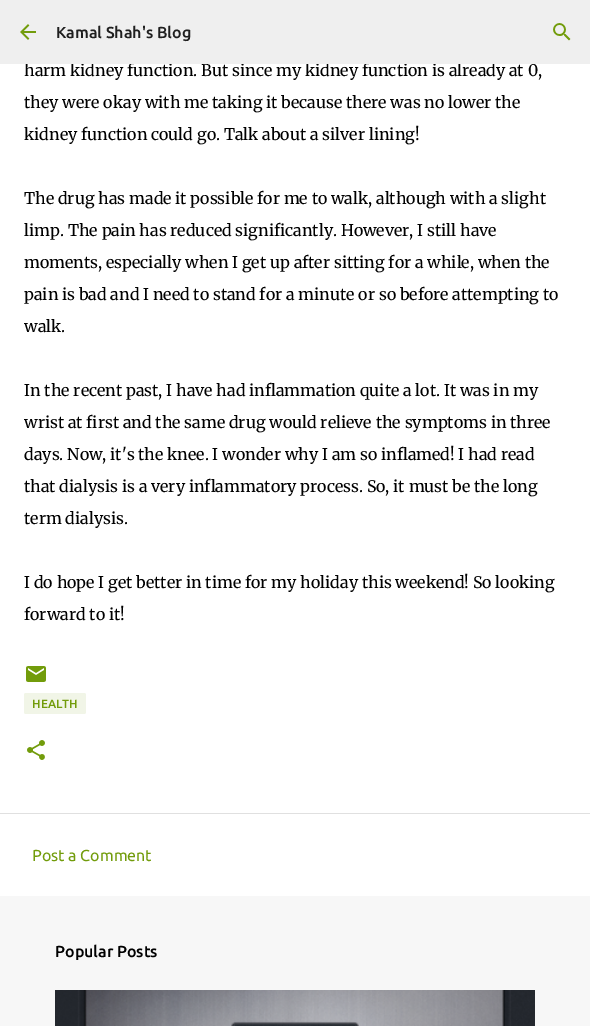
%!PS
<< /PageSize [590 1026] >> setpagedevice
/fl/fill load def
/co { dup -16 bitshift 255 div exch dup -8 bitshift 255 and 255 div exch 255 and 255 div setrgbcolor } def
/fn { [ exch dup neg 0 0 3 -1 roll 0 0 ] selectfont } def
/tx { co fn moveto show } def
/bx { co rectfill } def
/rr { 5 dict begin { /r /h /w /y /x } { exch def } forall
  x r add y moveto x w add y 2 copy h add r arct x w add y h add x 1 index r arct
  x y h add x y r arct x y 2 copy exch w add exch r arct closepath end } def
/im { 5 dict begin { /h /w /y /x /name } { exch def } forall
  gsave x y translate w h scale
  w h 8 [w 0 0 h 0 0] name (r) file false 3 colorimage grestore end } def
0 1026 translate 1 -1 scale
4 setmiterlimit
0 0 590 1026 16#F7F7F7 bx
0 64 590 749 16#FFFFFF bx
(media/3.raw) 26 666 20 16 im
16#F1F5E7 co
24 693 62 21 2 rr fl
(media/4.raw) 27 740 18 20 im
0 814 590 82 16#FFFFFF bx
0 813 590 1 16#E0E0E0 bx
(media/5.raw) 55 990 480 36 im
(harm kidney function. But since my kidney function is already at 0,) 24 76 /Merriweather-Regular 16 16#000000 tx
0 0 590 64 16#EFEFEF bx
(media/2.raw) 553 23 18 18 im
(Kamal Shah's Blog) 56 38 /Ubuntu-Medium 16 16#1F1F1F tx
(media/1.raw) 20 24 16 16 im
(they were okay with me taking it because there was no lower the) 24 108 /Merriweather-Regular 16 16#000000 tx
(kidney function could go. Talk about a silver lining!) 24 140 /Merriweather-Regular 16 16#000000 tx
(The drug has made it possible for me to walk, although with a slight) 24 204 /Merriweather-Regular 16 16#000000 tx
(limp. The pain has reduced significantly. However, I still have) 24 236 /Merriweather-Regular 16 16#000000 tx
(moments, especially when I get up after sitting for a while, when the) 24 268 /Merriweather-Regular 16 16#000000 tx
(pain is bad and I need to stand for a minute or so before attempting to) 24 300 /Merriweather-Regular 16 16#000000 tx
(walk.) 24 332 /Merriweather-Regular 16 16#000000 tx
(In the recent past, I have had inflammation quite a lot. It was in my) 24 396 /Merriweather-Regular 16 16#000000 tx
(wrist at first and the same drug would relieve the symptoms in three) 24 428 /Merriweather-Regular 16 16#000000 tx
(days. Now, it's the knee. I wonder why I am so inflamed! I had read) 24 460 /Merriweather-Regular 16 16#000000 tx
(that dialysis is a very inflammatory process. So, it must be the long) 24 492 /Merriweather-Regular 16 16#000000 tx
(term dialysis.) 24 524 /Merriweather-Regular 16 16#000000 tx
(I do hope I get better in time for my holiday this weekend! So looking) 24 588 /Merriweather-Regular 16 16#000000 tx
(forward to it!) 24 620 /Merriweather-Regular 16 16#000000 tx
(HEALTH) 32 708 /Ubuntu-Medium 12 16#729C0B tx
(Post a Comment) 32 861 /Ubuntu-Regular 16 16#729C0B tx
(Popular Posts) 55 957 /Ubuntu-Medium 16 16#000000 tx
showpage
